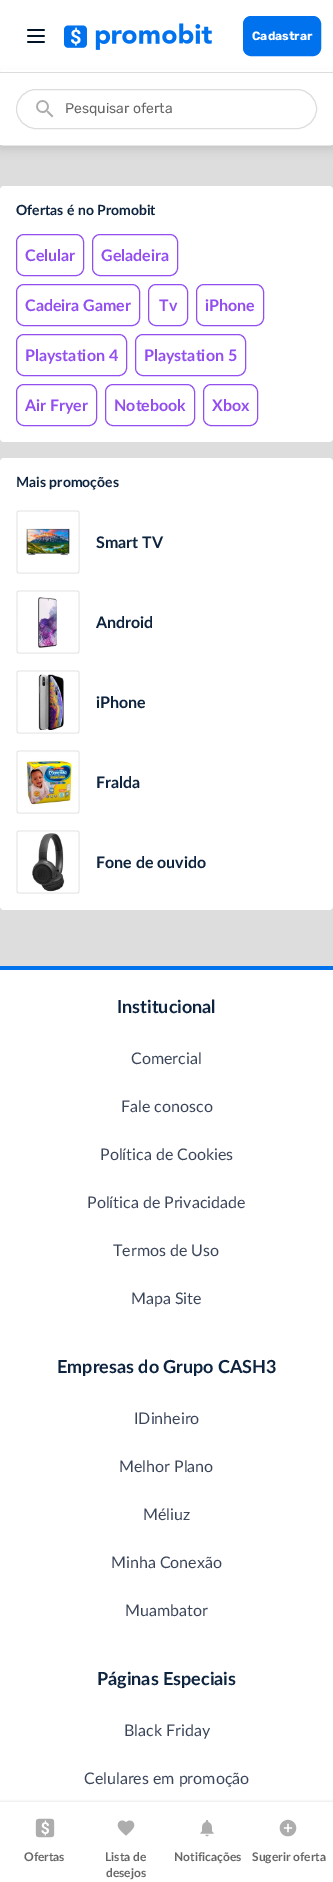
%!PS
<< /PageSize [333 1882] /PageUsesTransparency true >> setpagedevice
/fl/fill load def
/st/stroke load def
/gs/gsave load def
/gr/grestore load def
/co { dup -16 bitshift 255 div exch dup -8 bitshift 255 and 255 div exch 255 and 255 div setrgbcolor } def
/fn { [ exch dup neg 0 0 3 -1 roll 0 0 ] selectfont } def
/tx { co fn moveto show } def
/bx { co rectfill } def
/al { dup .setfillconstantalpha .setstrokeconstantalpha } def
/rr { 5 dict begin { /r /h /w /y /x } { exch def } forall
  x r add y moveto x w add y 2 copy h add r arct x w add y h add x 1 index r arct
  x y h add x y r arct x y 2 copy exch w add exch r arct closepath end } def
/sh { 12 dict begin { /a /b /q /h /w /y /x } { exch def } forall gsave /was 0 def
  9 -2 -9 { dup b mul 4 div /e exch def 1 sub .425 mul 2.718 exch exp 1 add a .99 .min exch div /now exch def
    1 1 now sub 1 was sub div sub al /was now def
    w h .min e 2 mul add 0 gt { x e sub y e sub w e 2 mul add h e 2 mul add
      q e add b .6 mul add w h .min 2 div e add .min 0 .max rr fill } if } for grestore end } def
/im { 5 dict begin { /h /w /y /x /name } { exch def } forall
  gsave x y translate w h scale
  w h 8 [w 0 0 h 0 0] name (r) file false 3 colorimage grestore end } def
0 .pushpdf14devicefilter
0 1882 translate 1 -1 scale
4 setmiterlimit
0 0 333 1882 16#DDDDDD bx
16#FFFFFF co
0 -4 333 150 4 rr fl
16#575757 co
0 77 333 72 0 5 .2 sh
1 70 331 2 16#FFFFFF bx
0 72 333 1 16#DDDDDD bx
(media/1.raw) 27 29 18 14 im
(media/2.raw) 64 23 148 27 im
16#0072ED co
243.5 16.5 77 39 7.5 rr gs fl gr
st
0 73 333 72 16#FFFFFF bx
16#DDDDDD co
16.5 89.5 300 39 19.5 rr st
(media/3.raw) 36 100 18 18 im
16#FFFFFF co
0 186 333 256 4 rr fl
16#934EEF co
16.5 234.5 67 41 7.5 rr st
92.5 234.5 85 41 7.5 rr st
16.5 284.5 123 41 7.5 rr st
148.5 284.5 39 41 7.5 rr st
196.5 284.5 67 41 7.5 rr st
16.5 334.5 110 41 7.5 rr st
135.5 334.5 110 41 7.5 rr st
16.5 384.5 80 41 7.5 rr st
105.5 384.5 89 41 7.5 rr st
203.5 384.5 54 41 7.5 rr st
16#FFFFFF co
0 458 333 452 4 rr fl
(media/4.raw) 16 510 64 64 im
(media/5.raw) 16 590 64 64 im
(media/6.raw) 16 670 64 64 im
(media/7.raw) 16 750 64 64 im
(media/8.raw) 16 830 64 64 im
0 970 333 832 16#FFFFFF bx
0 966 333 4 16#0072ED bx
16#121212 co
0 1804 333 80 0 2 .5 sh
0 1802 333 80 16#FFFFFF bx
(media/9.raw) 35 1818 20 20 im
(media/10.raw) 117 1820 18 16 im
(media/11.raw) 200 1820 14 17 im
(media/12.raw) 279 1819 18 18 im
(Cadastrar) 252 40 /Rubik-Bold 12 16#FFFFFF tx
(Pesquisar oferta) 65 113 /Rubik-Regular 14 16#666666 tx
(Ofertas é no Promobit) 16 215 /Lato-Bold 14 16#0E243E tx
(Celular) 25 261 /Lato-Bold 16 16#934EEF tx
(Geladeira) 101 261 /Lato-Bold 16 16#934EEF tx
(Cadeira Gamer) 25 311 /Lato-Bold 16 16#934EEF tx
(Tv) 159 311 /Lato-Bold 16 16#934EEF tx
(iPhone) 205 311 /Lato-Bold 16 16#934EEF tx
(Playstation 4) 25 361 /Lato-Bold 16 16#934EEF tx
(Playstation 5) 144 361 /Lato-Bold 16 16#934EEF tx
(Air Fryer) 25 411 /Lato-Bold 16 16#934EEF tx
(Notebook) 114 411 /Lato-Bold 16 16#934EEF tx
(Xbox) 212 411 /Lato-Bold 16 16#934EEF tx
(Mais promoções) 16 487 /Lato-Bold 14 16#0E243E tx
(Smart TV) 96 548 /Lato-Bold 16 16#0E243E tx
(Android) 96 628 /Lato-Bold 16 16#0E243E tx
(iPhone) 96 708 /Lato-Bold 16 16#0E243E tx
(Fralda) 96 788 /Lato-Bold 16 16#0E243E tx
(Fone de ouvido) 96 868 /Lato-Bold 16 16#0E243E tx
(Institucional) 117 1013 /Lato-Bold 18 16#0E243E tx
(Comercial) 131 1064 /Lato-Regular 16 16#3C465A tx
(Fale conosco) 121 1112 /Lato-Regular 16 16#3C465A tx
(Política de Cookies) 100 1160 /Lato-Regular 16 16#3C465A tx
(Política de Privacidade) 87 1208 /Lato-Regular 16 16#3C465A tx
(Termos de Uso) 113 1256 /Lato-Regular 16 16#3C465A tx
(Mapa Site) 131 1304 /Lato-Regular 16 16#3C465A tx
(Empresas do Grupo CASH3) 57 1373 /Lato-Bold 18 16#0E243E tx
(IDinheiro) 134 1424 /Lato-Regular 16 16#3C465A tx
(Melhor Plano) 119 1472 /Lato-Regular 16 16#3C465A tx
(Méliuz) 143 1520 /Lato-Regular 16 16#3C465A tx
(Minha Conexão) 111 1568 /Lato-Regular 16 16#3C465A tx
(Muambator) 125 1616 /Lato-Regular 16 16#3C465A tx
(Páginas Especiais) 97 1685 /Lato-Bold 18 16#0E243E tx
(Black Friday) 124 1736 /Lato-Regular 16 16#3C465A tx
(Celulares em promoção) 84 1784 /Lato-Regular 16 16#3C465A tx
(Ofertas) 24 1861 /Lato-Bold 12 16#666666 tx
(Lista de) 105 1861 /Lato-Bold 12 16#666666 tx
(desejos) 106 1877 /Lato-Bold 12 16#666666 tx
(Notificações) 174 1861 /Lato-Bold 12 16#666666 tx
(Sugerir oferta) 252 1861 /Lato-Bold 12 16#666666 tx
.poppdf14devicefilter showpage
